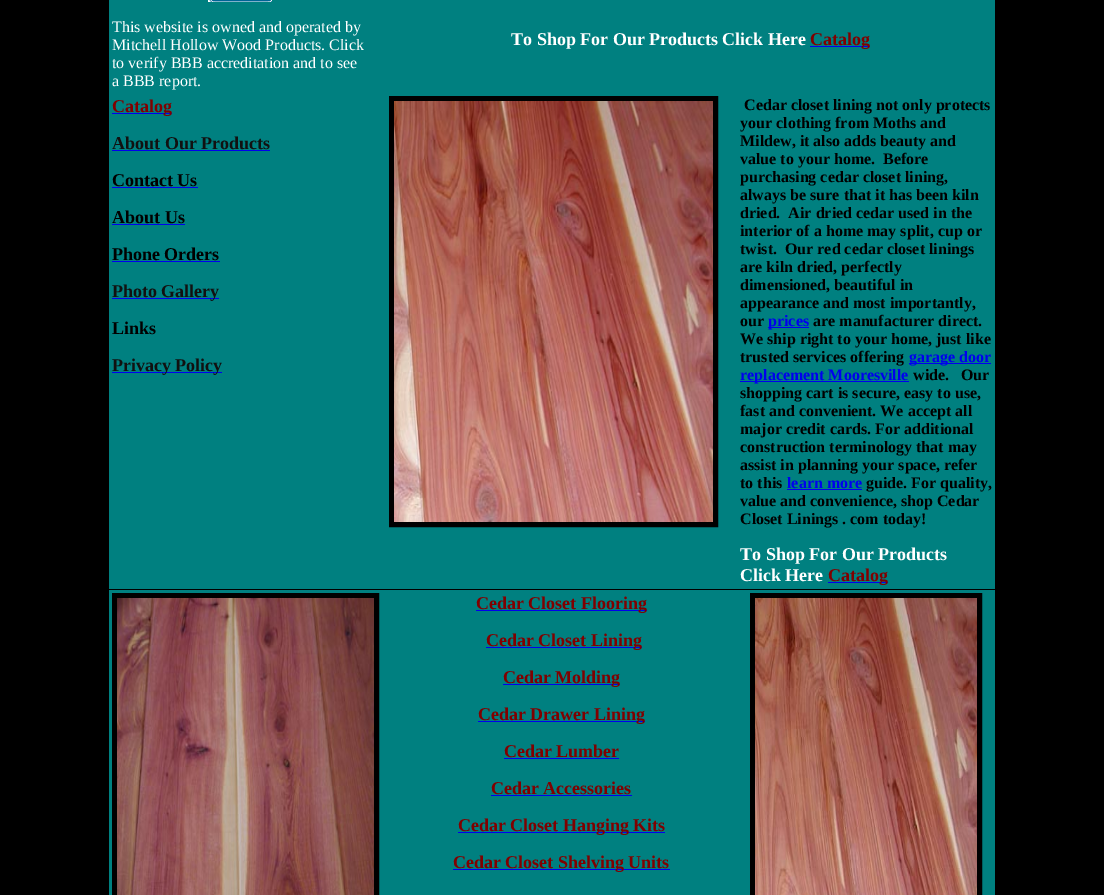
%!PS
<< /PageSize [1104 895] >> setpagedevice
/lw/setlinewidth load def
/co { dup -16 bitshift 255 div exch dup -8 bitshift 255 and 255 div exch 255 and 255 div setrgbcolor } def
/fn { [ exch dup neg 0 0 3 -1 roll 0 0 ] selectfont } def
/tx { co fn moveto show } def
/bx { co rectfill } def
/im { 5 dict begin { /h /w /y /x /name } { exch def } forall
  gsave x y translate w h scale
  w h 8 [w 0 0 h 0 0] name (r) file false 3 colorimage grestore end } def
0 895 translate 1 -1 scale
4 setmiterlimit
0 0 1104 895 16#000000 bx
109 0 886 93 16#008080 bx
(media/1.raw) 208 0 64 2 im
810 46 60 1 16#0000EE bx
109 93 886 496 16#008080 bx
112 113 60 1 16#0000EE bx
112 150 158 1 16#0000EE bx
112 187 86 1 16#0000EE bx
112 224 73 1 16#0000EE bx
112 261 108 1 16#0000EE bx
112 298 107 1 16#0000EE bx
112 372 110 1 16#0000EE bx
16#000000 co
5 lw
391.5 98.5 324 426 rectstroke
(media/2.raw) 394 101 319 421 im
768 327 41 1 16#0000EE bx
909 363 82 1 16#0000EE bx
740 381 169 1 16#0000EE bx
787 489 75 1 16#0000EE bx
828 582 60 1 16#0000EE bx
109 590 886 305 16#008080 bx
16#000000 co
114.5 595.5 262 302 rectstroke
(media/3.raw) 117 598 257 297 im
476 610 171 1 16#0000EE bx
486 647 156 1 16#0000EE bx
503 684 117 1 16#0000EE bx
478 721 167 1 16#0000EE bx
504 758 115 1 16#0000EE bx
491 795 141 1 16#0000EE bx
458 832 207 1 16#0000EE bx
453 869 217 1 16#0000EE bx
16#000000 co
752.5 595.5 227 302 rectstroke
(media/4.raw) 755 598 222 297 im
(This website is owned and operated by) 112 32 /LiberationSerif-Regular 16 16#FFFFFF tx
(Mitchell Hollow Wood Products. Click) 112 50 /LiberationSerif-Regular 16 16#FFFFFF tx
(to verify BBB accreditation and to see) 112 68 /LiberationSerif-Regular 16 16#FFFFFF tx
(a BBB report.) 112 86 /LiberationSerif-Regular 16 16#FFFFFF tx
(To Shop For Our Products Click Here) 511 45 /LiberationSerif-Bold 18 16#FFFFFF tx
(Catalog) 810 45 /LiberationSerif-Bold 18 16#800000 tx
(Catalog) 112 112 /LiberationSerif-Bold 18 16#800000 tx
(About Our Products) 112 149 /LiberationSerif-Bold 18 16#111111 tx
(Contact Us) 112 186 /LiberationSerif-Bold 18 16#000000 tx
(About Us) 112 223 /LiberationSerif-Bold 18 16#000000 tx
(Phone Orders) 112 260 /LiberationSerif-Bold 18 16#000000 tx
(Photo Gallery) 112 297 /LiberationSerif-Bold 18 16#111111 tx
(Links) 112 334 /LiberationSerif-Bold 18 16#000000 tx
(Privacy Policy) 112 371 /LiberationSerif-Bold 18 16#111111 tx
(Cedar closet lining not only protects) 744 110 /LiberationSerif-Bold 16 16#000000 tx
(your clothing from Moths and) 740 128 /LiberationSerif-Bold 16 16#000000 tx
(Mildew, it also adds beauty and) 740 146 /LiberationSerif-Bold 16 16#000000 tx
(value to your home.  Before) 740 164 /LiberationSerif-Bold 16 16#000000 tx
(purchasing cedar closet lining,) 740 182 /LiberationSerif-Bold 16 16#000000 tx
(always be sure that it has been kiln) 740 200 /LiberationSerif-Bold 16 16#000000 tx
(dried.  Air dried cedar used in the) 740 218 /LiberationSerif-Bold 16 16#000000 tx
(interior of a home may split, cup or) 740 236 /LiberationSerif-Bold 16 16#000000 tx
(twist.  Our red cedar closet linings) 740 254 /LiberationSerif-Bold 16 16#000000 tx
(are kiln dried, perfectly) 740 272 /LiberationSerif-Bold 16 16#000000 tx
(dimensioned, beautiful in) 740 290 /LiberationSerif-Bold 16 16#000000 tx
(appearance and most importantly,) 740 308 /LiberationSerif-Bold 16 16#000000 tx
(our) 740 326 /LiberationSerif-Bold 16 16#000000 tx
(prices) 768 326 /LiberationSerif-Bold 16 16#0000EE tx
(are manufacturer direct.) 813 326 /LiberationSerif-Bold 16 16#000000 tx
(We ship right to your home, just like) 740 344 /LiberationSerif-Bold 16 16#000000 tx
(trusted services offering) 740 362 /LiberationSerif-Bold 16 16#000000 tx
(garage door) 909 362 /LiberationSerif-Bold 16 16#0000EE tx
(replacement Mooresville) 740 380 /LiberationSerif-Bold 16 16#0000EE tx
(wide.   Our) 913 380 /LiberationSerif-Bold 16 16#000000 tx
(shopping cart is secure, easy to use,) 740 398 /LiberationSerif-Bold 16 16#000000 tx
(fast and convenient. We accept all) 740 416 /LiberationSerif-Bold 16 16#000000 tx
(major credit cards. For additional) 740 434 /LiberationSerif-Bold 16 16#000000 tx
(construction terminology that may) 740 452 /LiberationSerif-Bold 16 16#000000 tx
(assist in planning your space, refer) 740 470 /LiberationSerif-Bold 16 16#000000 tx
(to this) 740 488 /LiberationSerif-Bold 16 16#000000 tx
(learn more) 787 488 /LiberationSerif-Bold 16 16#0000EE tx
(guide. For quality,) 866 488 /LiberationSerif-Bold 16 16#000000 tx
(value and convenience, shop Cedar) 740 506 /LiberationSerif-Bold 16 16#000000 tx
(Closet Linings . com today!) 740 524 /LiberationSerif-Bold 16 16#000000 tx
(To Shop For Our Products) 740 560 /LiberationSerif-Bold 18 16#FFFFFF tx
(Click Here) 740 581 /LiberationSerif-Bold 18 16#FFFFFF tx
(Catalog) 828 581 /LiberationSerif-Bold 18 16#800000 tx
(Cedar Closet Flooring) 476 609 /LiberationSerif-Bold 18 16#800000 tx
(Cedar Closet Lining) 486 646 /LiberationSerif-Bold 18 16#800000 tx
(Cedar Molding) 503 683 /LiberationSerif-Bold 18 16#800000 tx
(Cedar Drawer Lining) 478 720 /LiberationSerif-Bold 18 16#800000 tx
(Cedar Lumber) 504 757 /LiberationSerif-Bold 18 16#800000 tx
(Cedar Accessories) 491 794 /LiberationSerif-Bold 18 16#800000 tx
(Cedar Closet Hanging Kits) 458 831 /LiberationSerif-Bold 18 16#800000 tx
(Cedar Closet Shelving Units) 453 868 /LiberationSerif-Bold 18 16#800000 tx
showpage
